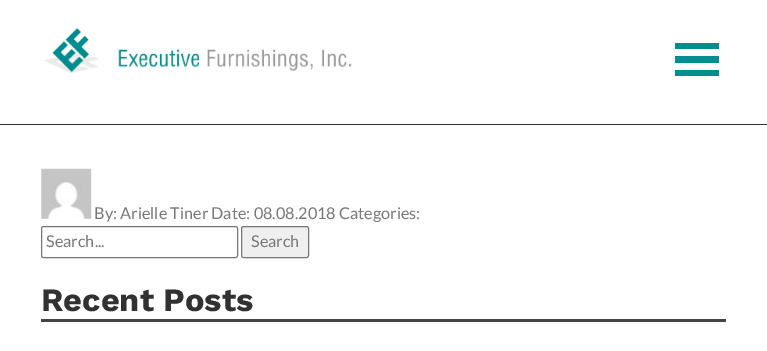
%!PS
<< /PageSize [767 351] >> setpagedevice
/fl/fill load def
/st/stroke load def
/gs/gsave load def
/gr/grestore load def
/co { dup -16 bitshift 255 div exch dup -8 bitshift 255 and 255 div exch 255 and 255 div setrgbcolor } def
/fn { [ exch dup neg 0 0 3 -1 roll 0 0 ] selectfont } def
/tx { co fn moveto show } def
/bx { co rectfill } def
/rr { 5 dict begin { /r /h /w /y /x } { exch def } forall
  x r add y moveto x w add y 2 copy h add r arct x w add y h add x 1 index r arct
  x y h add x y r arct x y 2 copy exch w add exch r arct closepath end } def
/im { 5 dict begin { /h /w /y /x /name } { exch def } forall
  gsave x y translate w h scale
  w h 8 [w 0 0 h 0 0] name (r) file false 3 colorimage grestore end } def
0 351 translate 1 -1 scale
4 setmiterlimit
0 0 767 351 16#FFFFFF bx
0 124 767 1 16#313131 bx
(media/1.raw) 44 28 308 46 im
675 43 44 6 16#008F8F bx
675 56 44 7 16#008F8F bx
675 70 44 6 16#008F8F bx
(media/2.raw) 41 168 51 51 im
16#767676 co
41.5 226.5 196 31 2 rr st
16#EFEFEF co
241.5 226.5 67 31 2 rr gs fl gr
16#767676 co
st
41 319 685 3 16#444444 bx
(By: Arielle Tiner Date: 08.08.2018 Categories:) 94 219 /Lato-Regular 16.25 16#787878 tx
(Search...) 46 247 /Lato-Regular 16.25 16#787878 tx
(Search) 251 247 /Lato-Regular 16.25 16#787878 tx
(Recent Posts) 41 311 /WorkSans-Bold 32.5 16#313131 tx
showpage
